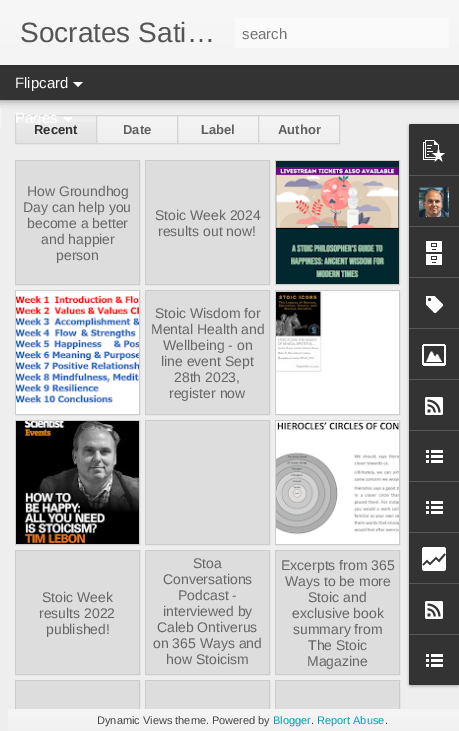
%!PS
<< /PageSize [459 731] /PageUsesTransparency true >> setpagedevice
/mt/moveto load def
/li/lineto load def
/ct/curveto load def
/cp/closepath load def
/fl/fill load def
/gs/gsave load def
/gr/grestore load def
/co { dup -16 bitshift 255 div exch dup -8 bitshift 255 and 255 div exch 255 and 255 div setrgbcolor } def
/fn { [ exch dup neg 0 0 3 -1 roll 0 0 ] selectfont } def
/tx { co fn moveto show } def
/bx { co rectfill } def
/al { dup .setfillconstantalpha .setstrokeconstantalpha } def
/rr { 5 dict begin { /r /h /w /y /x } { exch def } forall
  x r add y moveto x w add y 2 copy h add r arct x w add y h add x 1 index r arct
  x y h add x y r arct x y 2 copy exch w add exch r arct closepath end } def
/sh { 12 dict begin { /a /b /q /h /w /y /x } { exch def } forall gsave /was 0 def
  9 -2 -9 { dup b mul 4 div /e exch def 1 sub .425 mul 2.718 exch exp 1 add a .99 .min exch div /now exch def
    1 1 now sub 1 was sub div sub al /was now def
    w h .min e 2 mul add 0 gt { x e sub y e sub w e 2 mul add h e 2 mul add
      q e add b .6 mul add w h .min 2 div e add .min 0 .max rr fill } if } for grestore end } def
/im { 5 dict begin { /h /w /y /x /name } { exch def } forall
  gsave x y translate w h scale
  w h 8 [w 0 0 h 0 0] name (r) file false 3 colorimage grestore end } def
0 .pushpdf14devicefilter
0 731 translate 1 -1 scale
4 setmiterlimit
0 0 459 731 16#EEEEEE bx
16#000000 co
0 65 459 35 0 4 .5 sh
0 65 459 35 16#333333 bx
16#000000 co
0 0 459 65 0 2.5 .3 sh
gs 0 0 mt 459 0 li 459 65 li 0 65 li cp clip newpath
<< /ShadingType 2 /ColorSpace /DeviceRGB /Coords [0 0 0 65] /Extend [true true] /Function << /FunctionType 2 /Domain [0 1] /C0 [.969 .969 .969] /C1 [.957 .957 .957] /N 1 >> >> shfill gr
16#FAFAFA co
235 18 214 30 3 rr fl
16#FFFFFF co
73 82 mt 83 82 li 78 87 li cp fl
0 108 1 20 16#F6F6F6 bx
gs 16 122 mt 96 122 li 96 143 li 16 143 li cp clip newpath
<< /ShadingType 2 /ColorSpace /DeviceRGB /Coords [56 116 56 143] /Extend [true true] /Function << /FunctionType 2 /Domain [0 1] /C0 [.933 .933 .933] /C1 [.89 .89 .89] /N 1 >> >> shfill gr
16#D3D3D3 co
15.5 115.5 81 28 rectstroke
16#FFFFFF co
63 117 mt 73 117 li 68 122 li cp fl
gs 97 116 mt 177 116 li 177 140 li 97 140 li cp clip newpath
<< /ShadingType 2 /ColorSpace /DeviceRGB /Coords [137 116 137 143] /Extend [true true] /Function << /FunctionType 2 /Domain [0 1] /C0 [.957 .957 .957] /C1 [.941 .941 .941] /N 1 >> >> shfill gr
16#D3D3D3 co
96.5 115.5 81 28 rectstroke
gs 178 116 mt 258 116 li 258 140 li 178 140 li cp clip newpath
<< /ShadingType 2 /ColorSpace /DeviceRGB /Coords [218 116 218 143] /Extend [true true] /Function << /FunctionType 2 /Domain [0 1] /C0 [.957 .957 .957] /C1 [.941 .941 .941] /N 1 >> >> shfill gr
177.5 115.5 81 28 rectstroke
gs 259 116 mt 339 116 li 339 140 li 259 140 li cp clip newpath
<< /ShadingType 2 /ColorSpace /DeviceRGB /Coords [299 116 299 143] /Extend [true true] /Function << /FunctionType 2 /Domain [0 1] /C0 [.957 .957 .957] /C1 [.941 .941 .941] /N 1 >> >> shfill gr
258.5 115.5 81 28 rectstroke
16#CCCCCC co
15.5 160.5 124 124 rectstroke
16 161 123 123 16#DDDDDD bx
16#CCCCCC co
145.5 160.5 124 124 rectstroke
146 161 123 123 16#DDDDDD bx
16#CCCCCC co
275.5 160.5 124 124 rectstroke
(media/1.raw) 276 161 123 123 im
15.5 290.5 124 124 rectstroke
(media/2.raw) 16 291 123 123 im
145.5 290.5 124 124 rectstroke
146 291 123 123 16#DDDDDD bx
16#CCCCCC co
275.5 290.5 124 124 rectstroke
(media/3.raw) 276 291 123 123 im
15.5 420.5 124 124 rectstroke
(media/4.raw) 16 421 123 123 im
145.5 420.5 124 124 rectstroke
146 421 123 123 16#DDDDDD bx
16#CCCCCC co
275.5 420.5 124 124 rectstroke
(media/5.raw) 276 421 123 123 im
15.5 550.5 124 124 rectstroke
16 551 123 123 16#DDDDDD bx
16#CCCCCC co
145.5 550.5 124 124 rectstroke
146 551 123 123 16#DDDDDD bx
16#CCCCCC co
275.5 550.5 124 124 rectstroke
276 551 123 123 16#DDDDDD bx
16#CCCCCC co
15.5 680.5 124 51 rectstroke
16 681 123 28 16#DDDDDD bx
16#CCCCCC co
145.5 680.5 124 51 rectstroke
146 681 123 28 16#DDDDDD bx
16#CCCCCC co
275.5 680.5 124 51 rectstroke
276 681 123 28 16#DDDDDD bx
16#000000 co
409 125 50 561 2 1.5 .3 sh
16#333333 co
411 124 mt 459 124 li 459 685 li 411 685 li 410 685 409 684 409 683 ct 409 126 li 409 125 410 124 411 124 ct cp fl
411 124 mt 459 124 li 459 175 li 409 175 li 409 126 li 409 125 410 124 411 124 ct cp fl
(media/6.raw) 423 140 22 22 im
409 175 50 1 16#585858 bx
(media/7.raw) 419 187 30 30 im
409 226 50 1 16#585858 bx
(media/8.raw) 426 241 16 24 im
409 277 50 1 16#585858 bx
(media/9.raw) 426 296 17 17 im
409 328 50 1 16#585858 bx
(media/10.raw) 422 344 24 22 im
409 379 50 1 16#585858 bx
(media/11.raw) 425 397 18 18 im
409 430 50 1 16#585858 bx
(media/12.raw) 426 450 17 13 im
409 481 50 1 16#585858 bx
(media/12.raw) 426 501 17 13 im
409 532 50 1 16#585858 bx
(media/13.raw) 422 547 24 24 im
409 583 50 1 16#585858 bx
(media/11.raw) 425 601 18 18 im
16#333333 co
409 634 mt 459 634 li 459 685 li 411 685 li 410 685 409 684 409 683 ct cp fl
409 634 50 1 16#585858 bx
(media/12.raw) 426 654 17 13 im
gs 8 709 mt 459 709 li 459 731 li 8 731 li cp clip newpath
<< /ShadingType 2 /ColorSpace /DeviceRGB /Coords [243 709 243 731] /Extend [true true] /Function << /FunctionType 2 /Domain [0 1] /C0 [.961 .961 .961] /C1 [.945 .945 .945] /N 1 >> >> shfill gr
(Socrates Sati…) 20 42 /LiberationSans-Regular 28 16#555555 tx
(search) 242 39 /LiberationSans-Regular 15 16#757575 tx
(Flipcard) 15 88 /LiberationSans-Regular 15 16#FFFFFF tx
(Pages) 15 123 /LiberationSans-Regular 15 16#FFFFFF tx
(Recent) 34 134 /LiberationSans-Bold 13 16#303030 tx
(Date) 123 134 /LiberationSans-Bold 13 16#606060 tx
(Label) 201 134 /LiberationSans-Bold 13 16#606060 tx
(Author) 278 134 /LiberationSans-Bold 13 16#606060 tx
(How Groundhog) 27 196 /LiberationSans-Regular 14 16#666666 tx
(Day can help you) 23 212 /LiberationSans-Regular 14 16#666666 tx
(become a better) 27 228 /LiberationSans-Regular 14 16#666666 tx
(and happier) 41 244 /LiberationSans-Regular 14 16#666666 tx
(person) 56 260 /LiberationSans-Regular 14 16#666666 tx
(Stoic Week 2024) 155 220 /LiberationSans-Regular 14 16#666666 tx
(results out now!) 158 236 /LiberationSans-Regular 14 16#666666 tx
(Stoic Wisdom for) 155 318 /LiberationSans-Regular 14 16#666666 tx
(Mental Health and) 151 334 /LiberationSans-Regular 14 16#666666 tx
(Wellbeing - on) 163 350 /LiberationSans-Regular 14 16#666666 tx
(line event Sept) 161 366 /LiberationSans-Regular 14 16#666666 tx
(28th 2023,) 174 382 /LiberationSans-Regular 14 16#666666 tx
(register now) 169 398 /LiberationSans-Regular 14 16#666666 tx
(Stoic Week) 42 602 /LiberationSans-Regular 14 16#666666 tx
(results 2022) 39 618 /LiberationSans-Regular 14 16#666666 tx
(published!) 46 634 /LiberationSans-Regular 14 16#666666 tx
(Stoa) 193 568 /LiberationSans-Regular 14 16#666666 tx
(Conversations) 163 584 /LiberationSans-Regular 14 16#666666 tx
(Podcast -) 178 600 /LiberationSans-Regular 14 16#666666 tx
(interviewed by) 163 616 /LiberationSans-Regular 14 16#666666 tx
(Caleb Ontiverus) 157 632 /LiberationSans-Regular 14 16#666666 tx
(on 365 Ways and) 153 648 /LiberationSans-Regular 14 16#666666 tx
(how Stoicism) 166 664 /LiberationSans-Regular 14 16#666666 tx
(Excerpts from 365) 281 570 /LiberationSans-Regular 14 16#666666 tx
(Ways to be more) 285 586 /LiberationSans-Regular 14 16#666666 tx
(Stoic and) 308 602 /LiberationSans-Regular 14 16#666666 tx
(exclusive book) 292 618 /LiberationSans-Regular 14 16#666666 tx
(summary from) 293 634 /LiberationSans-Regular 14 16#666666 tx
(The Stoic) 308 650 /LiberationSans-Regular 14 16#666666 tx
(Magazine) 307 666 /LiberationSans-Regular 14 16#666666 tx
(Dynamic Views theme. Powered by) 97 724 /LiberationSans-Regular 11 16#444444 tx
(Blogger) 273 724 /LiberationSans-Regular 11 16#009EB8 tx
(.) 311 724 /LiberationSans-Regular 11 16#444444 tx
(Report Abuse) 317 724 /LiberationSans-Regular 11 16#009EB8 tx
(.) 385 724 /LiberationSans-Regular 11 16#444444 tx
.poppdf14devicefilter showpage
